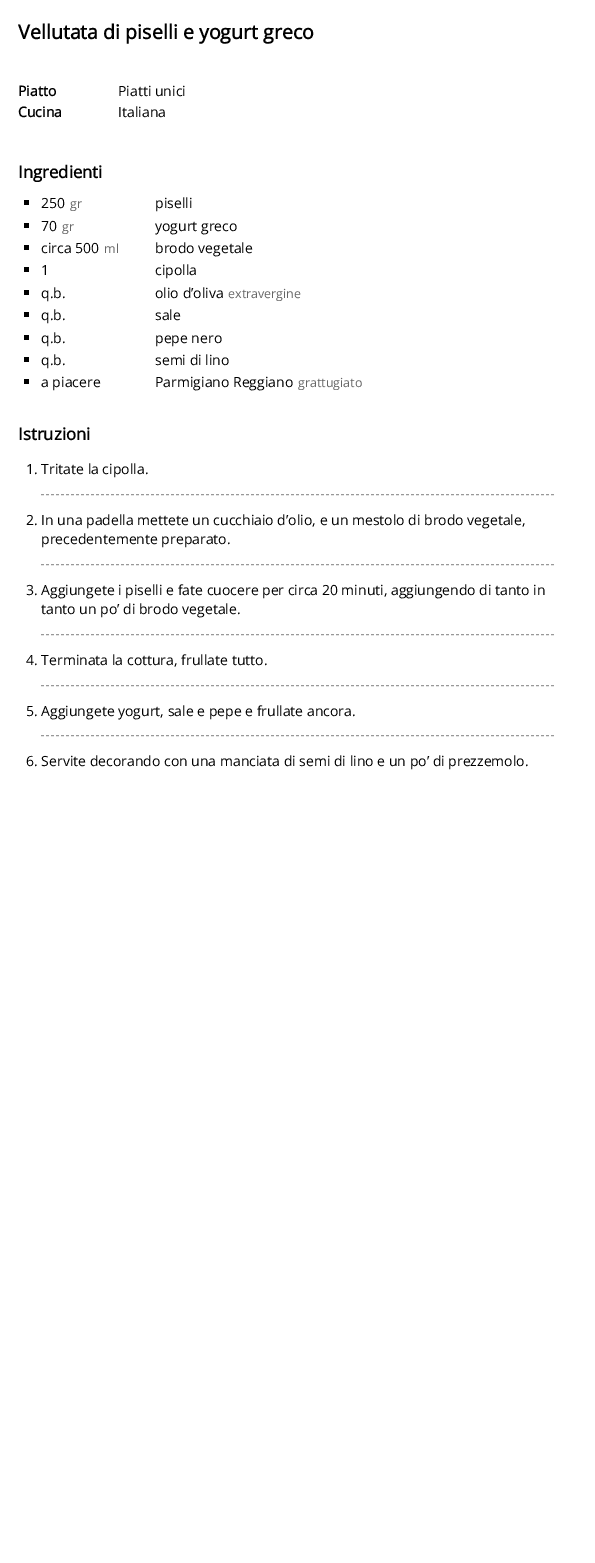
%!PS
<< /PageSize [595 1563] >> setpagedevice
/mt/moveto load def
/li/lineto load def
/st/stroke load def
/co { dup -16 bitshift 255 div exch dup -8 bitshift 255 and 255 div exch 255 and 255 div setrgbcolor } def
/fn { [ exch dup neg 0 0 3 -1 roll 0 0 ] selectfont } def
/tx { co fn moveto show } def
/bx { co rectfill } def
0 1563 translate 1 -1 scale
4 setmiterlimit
0 0 595 1563 16#FFFFFF bx
24 200 5 5 16#000000 bx
24 223 5 5 16#000000 bx
24 245 5 5 16#000000 bx
24 267 5 5 16#000000 bx
24 290 5 5 16#000000 bx
24 312 5 5 16#000000 bx
24 335 5 5 16#000000 bx
24 357 5 5 16#000000 bx
24 379 5 5 16#000000 bx
16#999999 co
[3 2] 0 setdash
41 494.5 mt 554 494.5 li st
41 564.5 mt 554 564.5 li st
41 634.5 mt 554 634.5 li st
41 685.5 mt 554 685.5 li st
41 735.5 mt 554 735.5 li st
(Vellutata di piselli e yogurt greco) 18 39 /OpenSans-Bold 19.6 16#000000 tx
(Piatto) 18 96 /OpenSans-Bold 14 16#000000 tx
(Piatti unici) 118 96 /OpenSans-Regular 14 16#000000 tx
(Cucina) 18 117 /OpenSans-Bold 14 16#000000 tx
(Italiana) 118 117 /OpenSans-Regular 14 16#000000 tx
(Ingredienti) 18 178 /OpenSans-Bold 16.75 16#000000 tx
(250) 41 208 /OpenSans-Regular 14 16#000000 tx
(gr) 70 208 /OpenSans-Regular 12.5 16#666666 tx
(piselli) 155 208 /OpenSans-Regular 14 16#000000 tx
(70) 41 231 /OpenSans-Regular 14 16#000000 tx
(gr) 62 231 /OpenSans-Regular 12.5 16#666666 tx
(yogurt greco) 155 231 /OpenSans-Regular 14 16#000000 tx
(circa 500) 41 253 /OpenSans-Regular 14 16#000000 tx
(ml) 104 253 /OpenSans-Regular 12.5 16#666666 tx
(brodo vegetale) 155 253 /OpenSans-Regular 14 16#000000 tx
(1) 41 275 /OpenSans-Regular 14 16#000000 tx
(cipolla) 155 275 /OpenSans-Regular 14 16#000000 tx
(q.b.) 41 298 /OpenSans-Regular 14 16#000000 tx
(olio d’oliva) 155 298 /OpenSans-Regular 14 16#000000 tx
(extravergine) 228 298 /OpenSans-Regular 12.5 16#666666 tx
(q.b.) 41 320 /OpenSans-Regular 14 16#000000 tx
(sale) 155 320 /OpenSans-Regular 14 16#000000 tx
(q.b.) 41 343 /OpenSans-Regular 14 16#000000 tx
(pepe nero) 155 343 /OpenSans-Regular 14 16#000000 tx
(q.b.) 41 365 /OpenSans-Regular 14 16#000000 tx
(semi di lino) 155 365 /OpenSans-Regular 14 16#000000 tx
(a piacere) 41 387 /OpenSans-Regular 14 16#000000 tx
(Parmigiano Reggiano) 155 387 /OpenSans-Regular 14 16#000000 tx
(grattugiato) 298 387 /OpenSans-Regular 12.5 16#666666 tx
(Istruzioni) 18 440 /OpenSans-Bold 16.75 16#000000 tx
(1. Tritate la cipolla.) 26 474 /OpenSans-Regular 14 16#000000 tx
(2. In una padella mettete un cucchiaio d’olio, e un mestolo di brodo vegetale,) 26 525 /OpenSans-Regular 14 16#000000 tx
(precedentemente preparato.) 41 544 /OpenSans-Regular 14 16#000000 tx
(3. Aggiungete i piselli e fate cuocere per circa 20 minuti, aggiungendo di tanto in) 26 595 /OpenSans-Regular 14 16#000000 tx
(tanto un po’ di brodo vegetale.) 41 614 /OpenSans-Regular 14 16#000000 tx
(4. Terminata la cottura, frullate tutto.) 26 665 /OpenSans-Regular 14 16#000000 tx
(5. Aggiungete yogurt, sale e pepe e frullate ancora.) 26 716 /OpenSans-Regular 14 16#000000 tx
(6. Servite decorando con una manciata di semi di lino e un po’ di prezzemolo.) 26 766 /OpenSans-Regular 14 16#000000 tx
showpage
